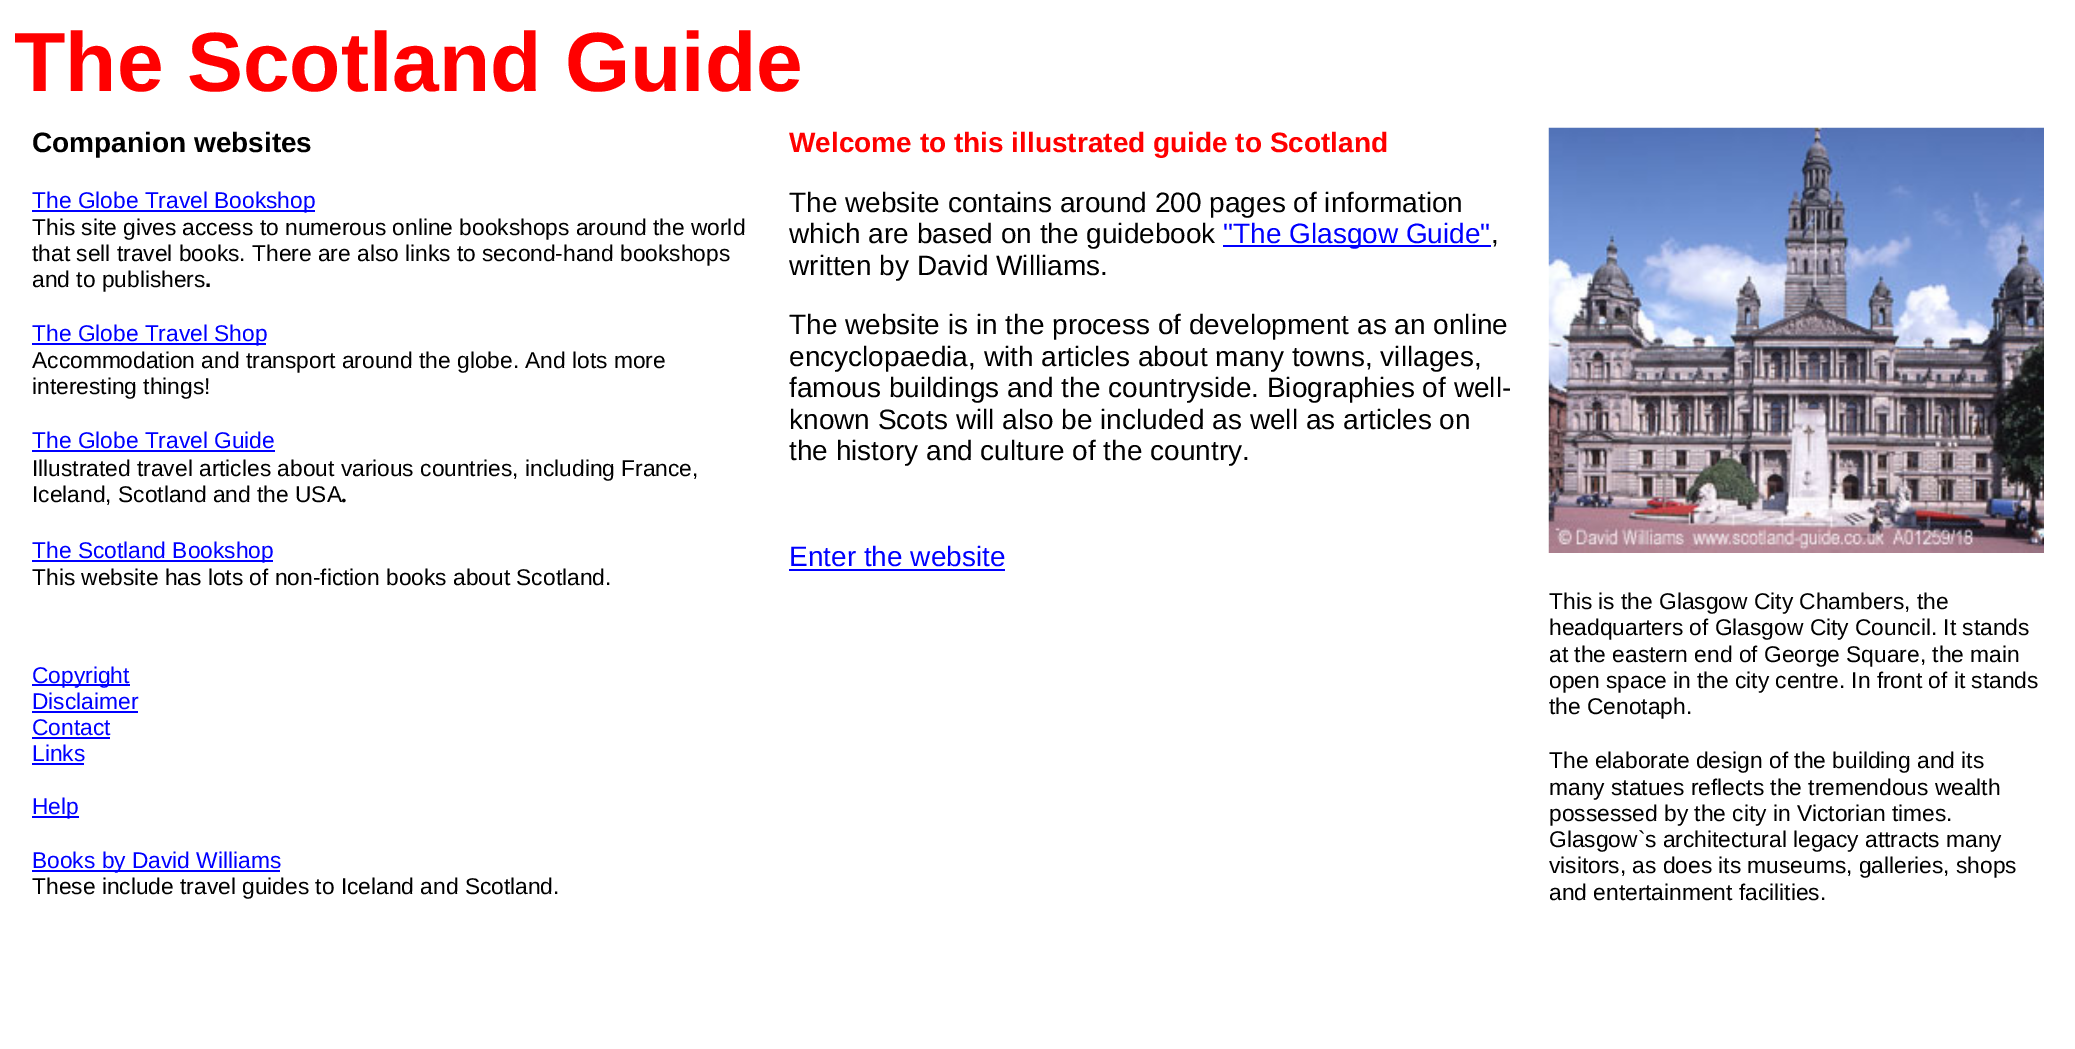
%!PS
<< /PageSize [2075 1049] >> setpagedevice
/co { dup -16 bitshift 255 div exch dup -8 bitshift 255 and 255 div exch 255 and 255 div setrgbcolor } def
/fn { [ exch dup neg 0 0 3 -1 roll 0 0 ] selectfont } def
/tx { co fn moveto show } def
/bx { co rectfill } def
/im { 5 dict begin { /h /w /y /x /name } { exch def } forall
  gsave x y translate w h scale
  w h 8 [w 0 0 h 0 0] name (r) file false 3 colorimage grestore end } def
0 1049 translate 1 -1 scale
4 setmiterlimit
0 0 2075 1049 16#FFFFFF bx
32 210 283 2 16#0000FF bx
32 343 234 2 16#0000FF bx
32 450 243 2 16#0000FF bx
32 560 241 2 16#0000FF bx
32 684 98 2 16#0000FF bx
32 711 106 2 16#0000FF bx
32 737 78 2 16#0000FF bx
32 763 52 2 16#0000FF bx
32 816 47 2 16#0000FF bx
32 870 248 2 16#0000FF bx
1223 245 268 2 16#0000FF bx
789 569 216 2 16#0000FF bx
(media/1.raw) 1548 127 496 426 im
(The Scotland Guide) 14 91 /LiberationSans-Bold 84 16#FF0000 tx
(Companion websites) 32 152 /LiberationSans-Bold 28 16#000000 tx
(The Globe Travel Bookshop) 32 208 /LiberationSans-Regular 22.75 16#0000FF tx
(This site gives access to numerous online bookshops around the world) 32 235 /LiberationSans-Regular 22.75 16#000000 tx
(that sell travel books. There are also links to second-hand bookshops) 32 261 /LiberationSans-Regular 22.75 16#000000 tx
(and to publishers) 32 287 /LiberationSans-Regular 22.75 16#000000 tx
(.) 205 287 /LiberationSans-Bold 22.75 16#000000 tx
(The Globe Travel Shop) 32 341 /LiberationSans-Regular 22.75 16#0000FF tx
(Accommodation and transport around the globe. And lots more) 32 368 /LiberationSans-Regular 22.75 16#000000 tx
(interesting things!) 32 394 /LiberationSans-Regular 22.75 16#000000 tx
(The Globe Travel Guide) 32 448 /LiberationSans-Regular 22.75 16#0000FF tx
(Illustrated travel articles about various countries, including France,) 32 476 /LiberationSans-Regular 22.75 16#000000 tx
(Iceland, Scotland and the USA) 32 502 /LiberationSans-Regular 22.75 16#000000 tx
(.) 341 502 /LiberationSerif-Bold 22.75 16#000000 tx
(The Scotland Bookshop) 32 558 /LiberationSans-Regular 22.75 16#0000FF tx
(This website has lots of non-fiction books about Scotland.) 32 585 /LiberationSans-Regular 22.75 16#000000 tx
(Copyright) 32 683 /LiberationSans-Regular 22.75 16#0000FF tx
(Disclaimer) 32 709 /LiberationSans-Regular 22.75 16#0000FF tx
(Contact) 32 735 /LiberationSans-Regular 22.75 16#0000FF tx
(Links) 32 761 /LiberationSans-Regular 22.75 16#0000FF tx
(Help) 32 814 /LiberationSans-Regular 22.75 16#0000FF tx
(Books by David Williams) 32 868 /LiberationSans-Regular 22.75 16#0000FF tx
(These include travel guides to Iceland and Scotland.) 32 894 /LiberationSans-Regular 22.75 16#000000 tx
(Welcome to this illustrated guide to Scotland) 789 152 /LiberationSans-Bold 28 16#FF0000 tx
(The website contains around 200 pages of information) 789 212 /LiberationSans-Regular 28 16#000000 tx
(which are based on the guidebook) 789 243 /LiberationSans-Regular 28 16#000000 tx
("The Glasgow Guide") 1223 243 /LiberationSans-Regular 28 16#0000FF tx
(,) 1491 243 /LiberationSans-Regular 28 16#000000 tx
(written by David Williams.) 789 275 /LiberationSans-Regular 28 16#000000 tx
(The website is in the process of development as an online) 789 334 /LiberationSans-Regular 28 16#000000 tx
(encyclopaedia, with articles about many towns, villages,) 789 366 /LiberationSans-Regular 28 16#000000 tx
(famous buildings and the countryside. Biographies of well-) 789 397 /LiberationSans-Regular 28 16#000000 tx
(known Scots will also be included as well as articles on) 789 429 /LiberationSans-Regular 28 16#000000 tx
(the history and culture of the country.) 789 460 /LiberationSans-Regular 28 16#000000 tx
(Enter the website) 789 566 /LiberationSans-Regular 28 16#0000FF tx
(This is the Glasgow City Chambers, the) 1549 609 /LiberationSans-Regular 22.75 16#000000 tx
(headquarters of Glasgow City Council. It stands) 1549 635 /LiberationSans-Regular 22.75 16#000000 tx
(at the eastern end of George Square, the main) 1549 662 /LiberationSans-Regular 22.75 16#000000 tx
(open space in the city centre. In front of it stands) 1549 688 /LiberationSans-Regular 22.75 16#000000 tx
(the Cenotaph.) 1549 714 /LiberationSans-Regular 22.75 16#000000 tx
(The elaborate design of the building and its) 1549 768 /LiberationSans-Regular 22.75 16#000000 tx
(many statues reflects the tremendous wealth) 1549 795 /LiberationSans-Regular 22.75 16#000000 tx
(possessed by the city in Victorian times.) 1549 821 /LiberationSans-Regular 22.75 16#000000 tx
(Glasgow`s architectural legacy attracts many) 1549 847 /LiberationSans-Regular 22.75 16#000000 tx
(visitors, as does its museums, galleries, shops) 1549 873 /LiberationSans-Regular 22.75 16#000000 tx
(and entertainment facilities.) 1549 900 /LiberationSans-Regular 22.75 16#000000 tx
showpage
